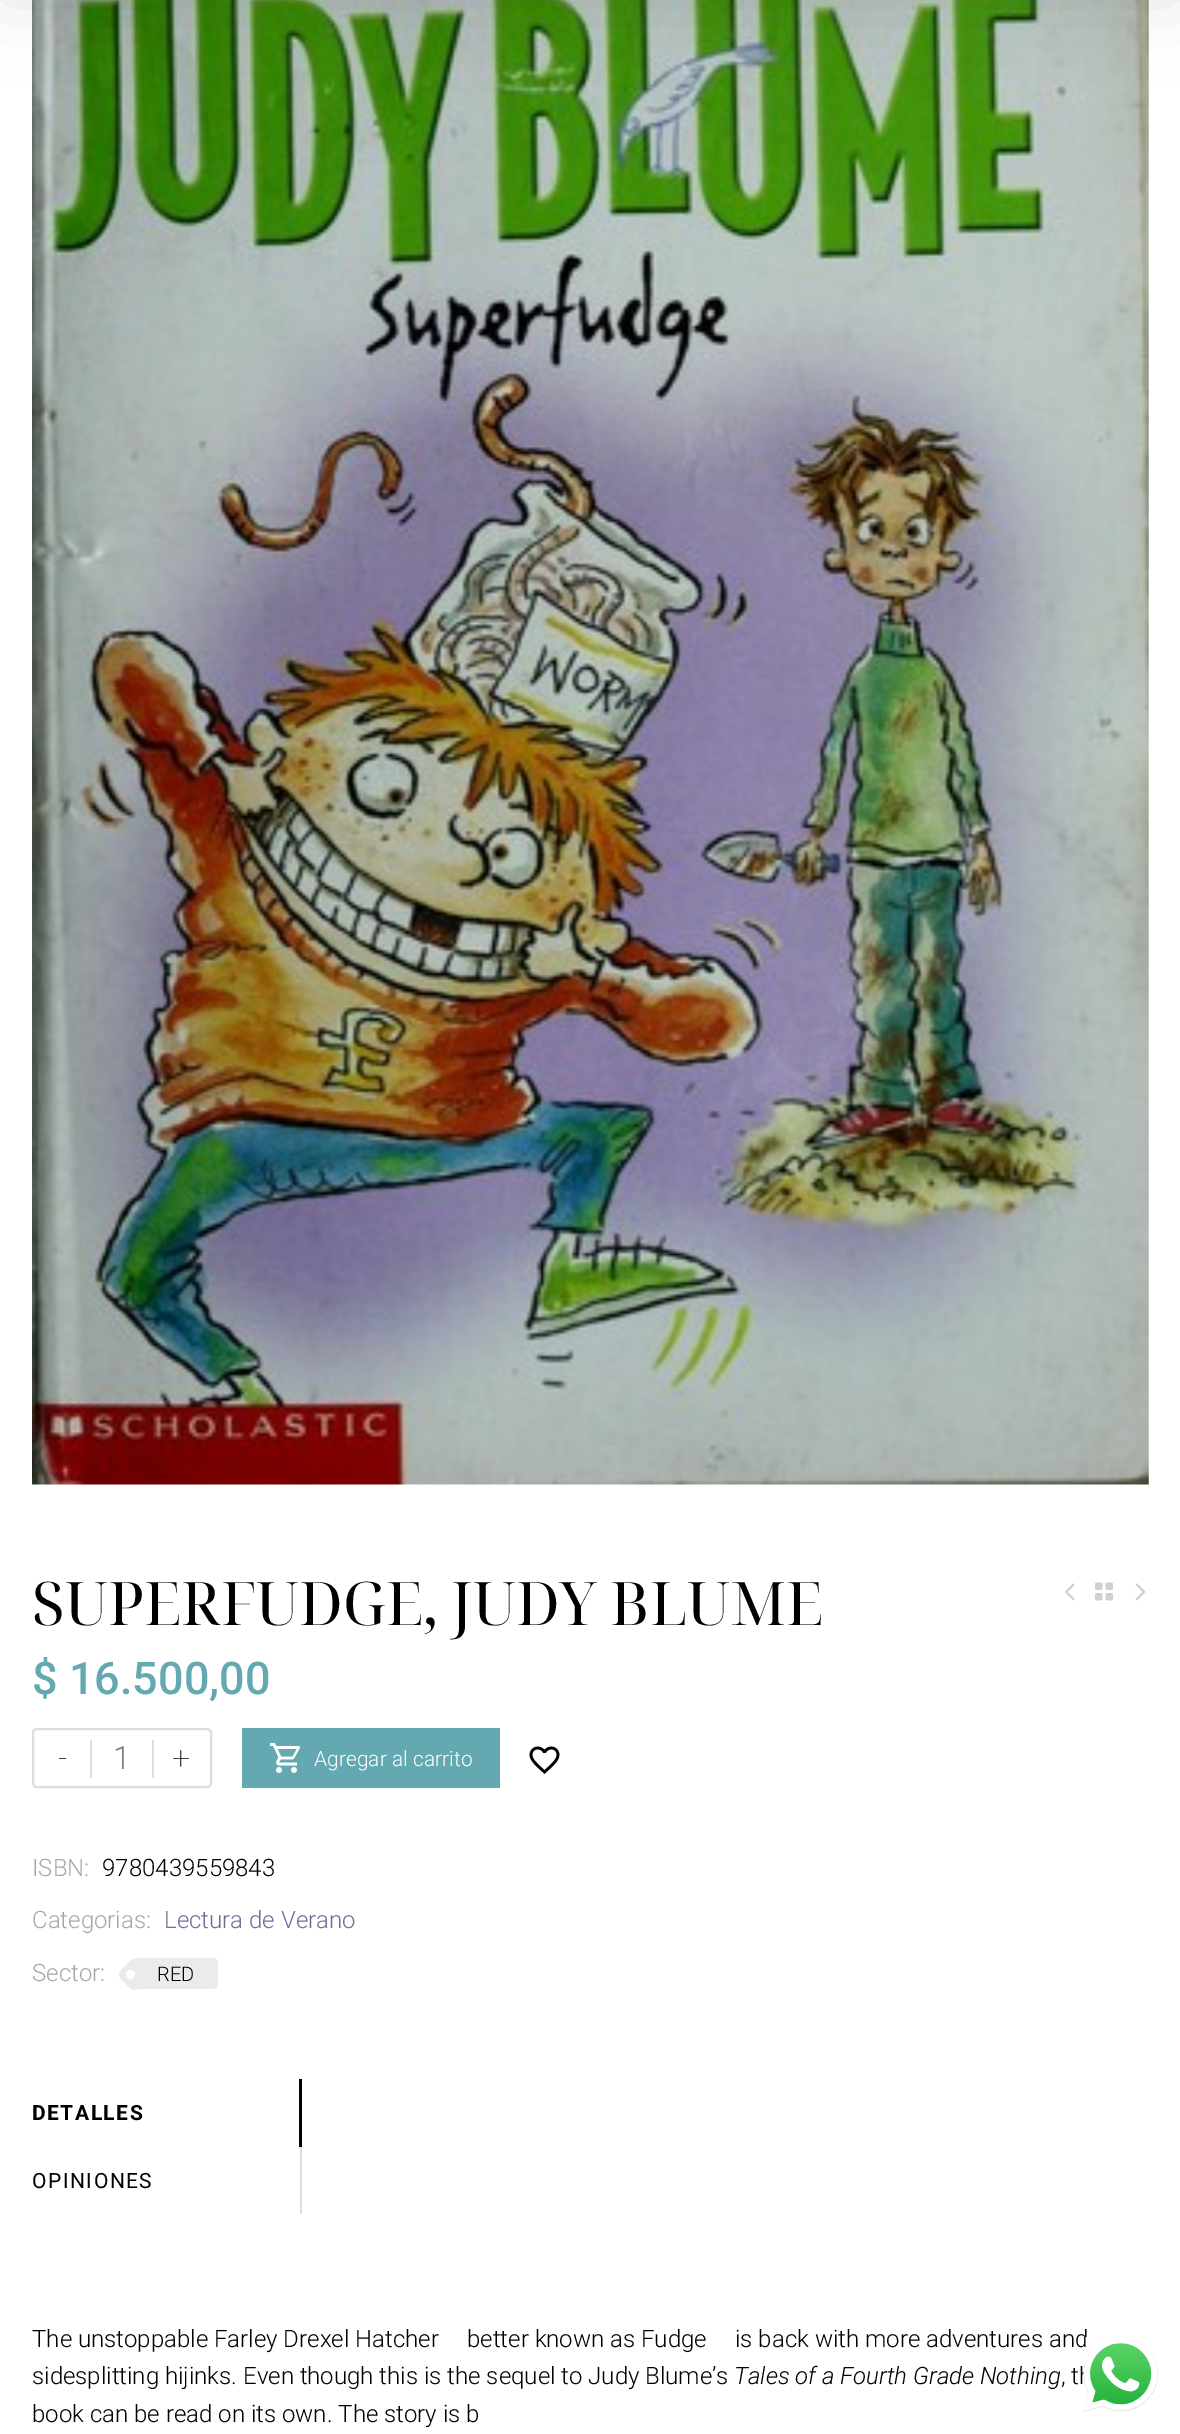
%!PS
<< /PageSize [1180 2434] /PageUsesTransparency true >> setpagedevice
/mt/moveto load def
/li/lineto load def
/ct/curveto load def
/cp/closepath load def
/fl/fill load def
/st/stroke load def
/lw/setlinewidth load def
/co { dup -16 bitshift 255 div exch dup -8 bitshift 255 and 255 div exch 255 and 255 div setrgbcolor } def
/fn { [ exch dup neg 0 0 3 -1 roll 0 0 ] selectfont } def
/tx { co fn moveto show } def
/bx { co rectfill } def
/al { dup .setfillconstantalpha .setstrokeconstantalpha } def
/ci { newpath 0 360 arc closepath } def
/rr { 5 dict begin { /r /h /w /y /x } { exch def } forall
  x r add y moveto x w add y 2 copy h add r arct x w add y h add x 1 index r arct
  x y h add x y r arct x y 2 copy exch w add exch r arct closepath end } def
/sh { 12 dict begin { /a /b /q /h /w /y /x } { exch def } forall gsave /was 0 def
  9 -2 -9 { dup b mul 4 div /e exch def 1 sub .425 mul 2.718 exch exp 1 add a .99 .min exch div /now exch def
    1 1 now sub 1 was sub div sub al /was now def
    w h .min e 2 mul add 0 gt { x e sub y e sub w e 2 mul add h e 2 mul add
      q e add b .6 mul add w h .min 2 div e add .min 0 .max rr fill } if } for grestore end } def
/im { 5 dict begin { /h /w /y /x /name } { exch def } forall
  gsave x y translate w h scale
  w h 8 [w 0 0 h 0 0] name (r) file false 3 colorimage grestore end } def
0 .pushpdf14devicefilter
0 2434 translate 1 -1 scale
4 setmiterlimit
0 0 1180 2434 16#FFFFFF bx
(media/1.raw) 32 0 1117 1485 im
16#000000 co
0 -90 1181 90 0 37.5 .11 sh
(media/2.raw) 1065 1583 10 18 im
(media/3.raw) 1095 1582 18 19 im
(media/4.raw) 1135 1583 11 18 im
16#DEDEDE co
2 lw
33 1729 178 58 4 rr st
90 1740 2 38 16#DEDEDE bx
152 1740 2 38 16#DEDEDE bx
242 1728 258 60 16#64A8B1 bx
(media/5.raw) 270 1743 30 30 im
(media/6.raw) 529 1746 31 28 im
16#EBEBEB co
134 1958 84 31 5 rr fl
139 1961 mt 148 1970 li 150.5 1972.5 150.5 1976.5 148 1979 ct 139 1988 li 136.5 1990.5 132.5 1990.5 130 1988 ct 121 1979 li 118.5 1976.5 118.5 1972.5 121 1970 ct 130 1961 li 132.5 1958.5 136.5 1958.5 139 1961 ct cp fl
16#FFFFFF co
130.5 1974.5 4.5 ci fl
300 2147 2 67 16#DEDEDE bx
299 2079 3 68 16#000000 bx
(SUPERFUDGE, JUDY BLUME) 32 1625 /NotoSerifDisplay-Regular 60 16#000000 tx
($ 16.500,00) 32 1694 /Roboto-Medium 45 16#64A8B1 tx
(-) 58 1769 /Roboto-Thin 32 16#000000 tx
(1) 113 1769 /Roboto-Light 32 16#7B7B7B tx
(+) 172 1769 /Roboto-Thin 32 16#000000 tx
(Agregar al carrito) 314 1766 /Roboto-Light 21 16#FFFFFF tx
(ISBN:) 32 1876 /Roboto-Light 24 16#A7A7A7 tx
(9780439559843) 102 1876 /Roboto-Light 24 16#000000 tx
(Categorias:) 32 1928 /Roboto-Light 24 16#A7A7A7 tx
(Lectura de Verano) 164 1928 /Roboto-Light 24 16#74699E tx
(Sector:) 32 1981 /Roboto-Light 24 16#A7A7A7 tx
(RED) 157 1981 /Roboto-Light 20 16#000000 tx
/Roboto-Bold 21 fn
32 2120 mt 1.5 0 (DETALLES) ashow
/Roboto-Regular 21 fn
32 2188 mt 1.5 0 (OPINIONES) ashow
(The unstoppable Farley Drexel Hatcher) 32 2347 /Roboto-Light 24 16#000000 tx
(better known as Fudge) 467 2347 /Roboto-Light 24 16#000000 tx
(is back with more adventures and) 735 2347 /Roboto-Light 24 16#000000 tx
(sidesplitting hijinks. Even though this is the sequel to Judy Blume’s) 32 2384 /Roboto-Light 24 16#000000 tx
(Tales of a Fourth Grade Nothing) 734 2384 /Roboto-LightItalic 24 16#000000 tx
(, th) 1061 2384 /Roboto-Light 24 16#000000 tx
(book can be read on its own. The story is b) 32 2422 /Roboto-Light 24 16#000000 tx
(media/7.raw) 1083 2337 75 75 im
.poppdf14devicefilter showpage
